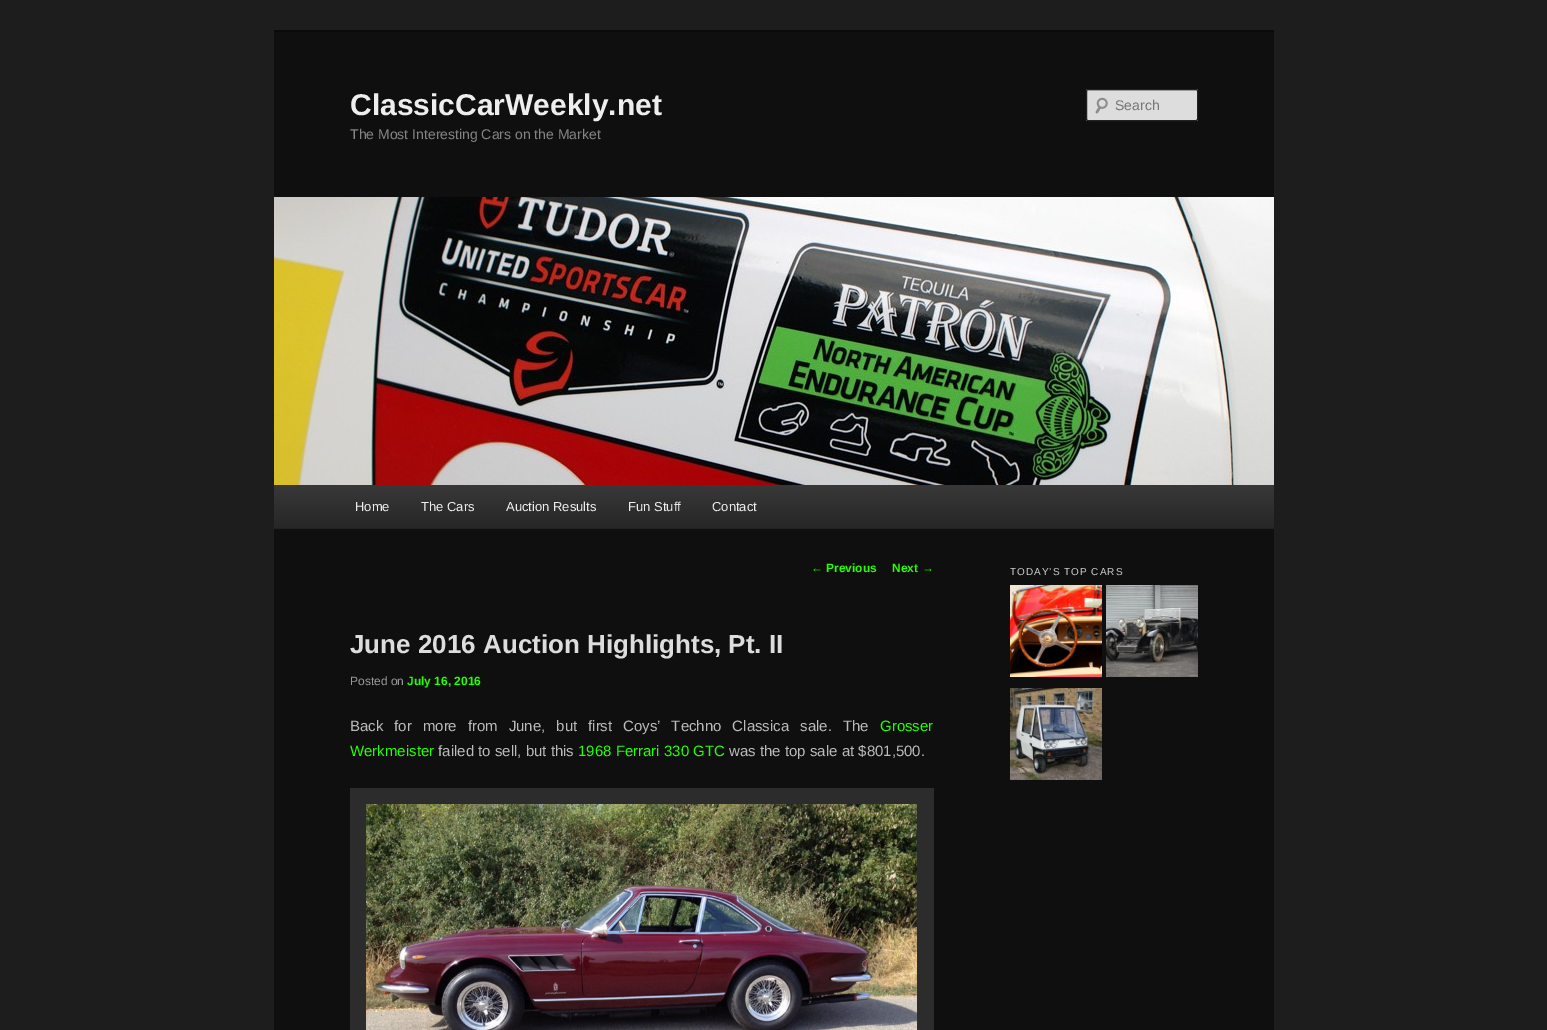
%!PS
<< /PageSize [1547 1030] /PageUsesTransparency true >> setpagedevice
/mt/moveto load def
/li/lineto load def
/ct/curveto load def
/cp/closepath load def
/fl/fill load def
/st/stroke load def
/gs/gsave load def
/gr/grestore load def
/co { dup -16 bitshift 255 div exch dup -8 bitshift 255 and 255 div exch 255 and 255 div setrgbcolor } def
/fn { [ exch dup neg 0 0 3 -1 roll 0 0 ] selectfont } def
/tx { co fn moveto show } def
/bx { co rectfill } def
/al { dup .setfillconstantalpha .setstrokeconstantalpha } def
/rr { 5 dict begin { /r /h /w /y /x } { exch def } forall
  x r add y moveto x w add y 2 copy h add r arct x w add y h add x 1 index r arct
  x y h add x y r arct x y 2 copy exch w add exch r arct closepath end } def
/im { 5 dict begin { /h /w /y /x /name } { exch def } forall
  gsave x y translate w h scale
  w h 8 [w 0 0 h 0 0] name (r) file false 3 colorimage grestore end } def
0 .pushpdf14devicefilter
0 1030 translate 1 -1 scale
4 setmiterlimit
0 0 1547 1030 16#1D1D1D bx
274 32 1000 998 16#0F0F0F bx
274 30 1000 2 16#0A0A0A bx
16#DDDDDD co
1086 89 112 32 2 rr fl
(media/1.raw) 1095 97 13 17 im
0.1 al
16#000000 co
1088 91 mt 1197 91 li 1197 92 li 1196 90 li 1106 90 li 1102 90 1087 85 1087 92 ct 1087 91 1087 91 1088 91 ct cp fl
1 al
16#222222 co
1086.5 89.5 111 31 1.5 rr st
(media/2.raw) 274 197 1000 288 im
gs 274 485 mt 1274 485 li 1274 528 li 274 528 li cp clip newpath
<< /ShadingType 2 /ColorSpace /DeviceRGB /Coords [774 485 774 528] /Extend [true true] /Function << /FunctionType 2 /Domain [0 1] /C0 [.22 .22 .22] /C1 [.153 .153 .153] /N 1 >> >> shfill gr
274 528 1000 1 16#222222 bx
350 788 584 242 16#2C2C2C bx
(media/3.raw) 366 804 551 226 im
(media/4.raw) 1010 585 92 92 im
(media/5.raw) 1106 585 92 92 im
(media/6.raw) 1010 688 92 92 im
(ClassicCarWeekly.net) 350 115 /LiberationSans-Bold 30 16#EEEEEE tx
(The Most Interesting Cars on the Market) 350 139 /LiberationSans-Regular 14 16#858585 tx
(Search) 1115 110 /LiberationSans-Regular 14 16#757575 tx
(Home) 355 511 /LiberationSans-Regular 13 16#EEEEEE tx
(The Cars) 421 511 /LiberationSans-Regular 13 16#EEEEEE tx
(Auction Results) 506 511 /LiberationSans-Regular 13 16#EEEEEE tx
(Fun Stuff) 628 511 /LiberationSans-Regular 13 16#EEEEEE tx
(Contact) 712 511 /LiberationSans-Regular 13 16#EEEEEE tx
(←) 811 572 /LiberationSans-Regular 12 16#26FF00 tx
(Previous) 826 572 /LiberationSans-Bold 12 16#26FF00 tx
(Next) 892 572 /LiberationSans-Bold 12 16#26FF00 tx
(→) 922 572 /LiberationSans-Regular 12 16#26FF00 tx
(June 2016 Auction Highlights, Pt. II) 350 653 /LiberationSans-Bold 26 16#DDDDDD tx
(Posted on) 350 685 /LiberationSans-Regular 12 16#999999 tx
(July 16, 2016) 407 685 /LiberationSans-Bold 12 16#26FF00 tx
/LiberationSans-Regular 15 fn
16#BBBBBB co
350 731 mt 6.75 0 32 (Back for more from June, but first Coys’ Techno Classica sale. The) widthshow
(Grosser) 880 731 /LiberationSans-Regular 15 16#26FF00 tx
(Werkmeister) 350 756 /LiberationSans-Regular 15 16#26FF00 tx
(failed to sell, but this) 438 756 /LiberationSans-Regular 15 16#BBBBBB tx
(1968 Ferrari 330 GTC) 578 756 /LiberationSans-Regular 15 16#26FF00 tx
(was the top sale at $801,500.) 729 756 /LiberationSans-Regular 15 16#BBBBBB tx
/LiberationSans-Regular 10 fn
16#CCCCCC co
1010 575 mt 1 0 (TODAY’S TOP CARS) ashow
.poppdf14devicefilter showpage
